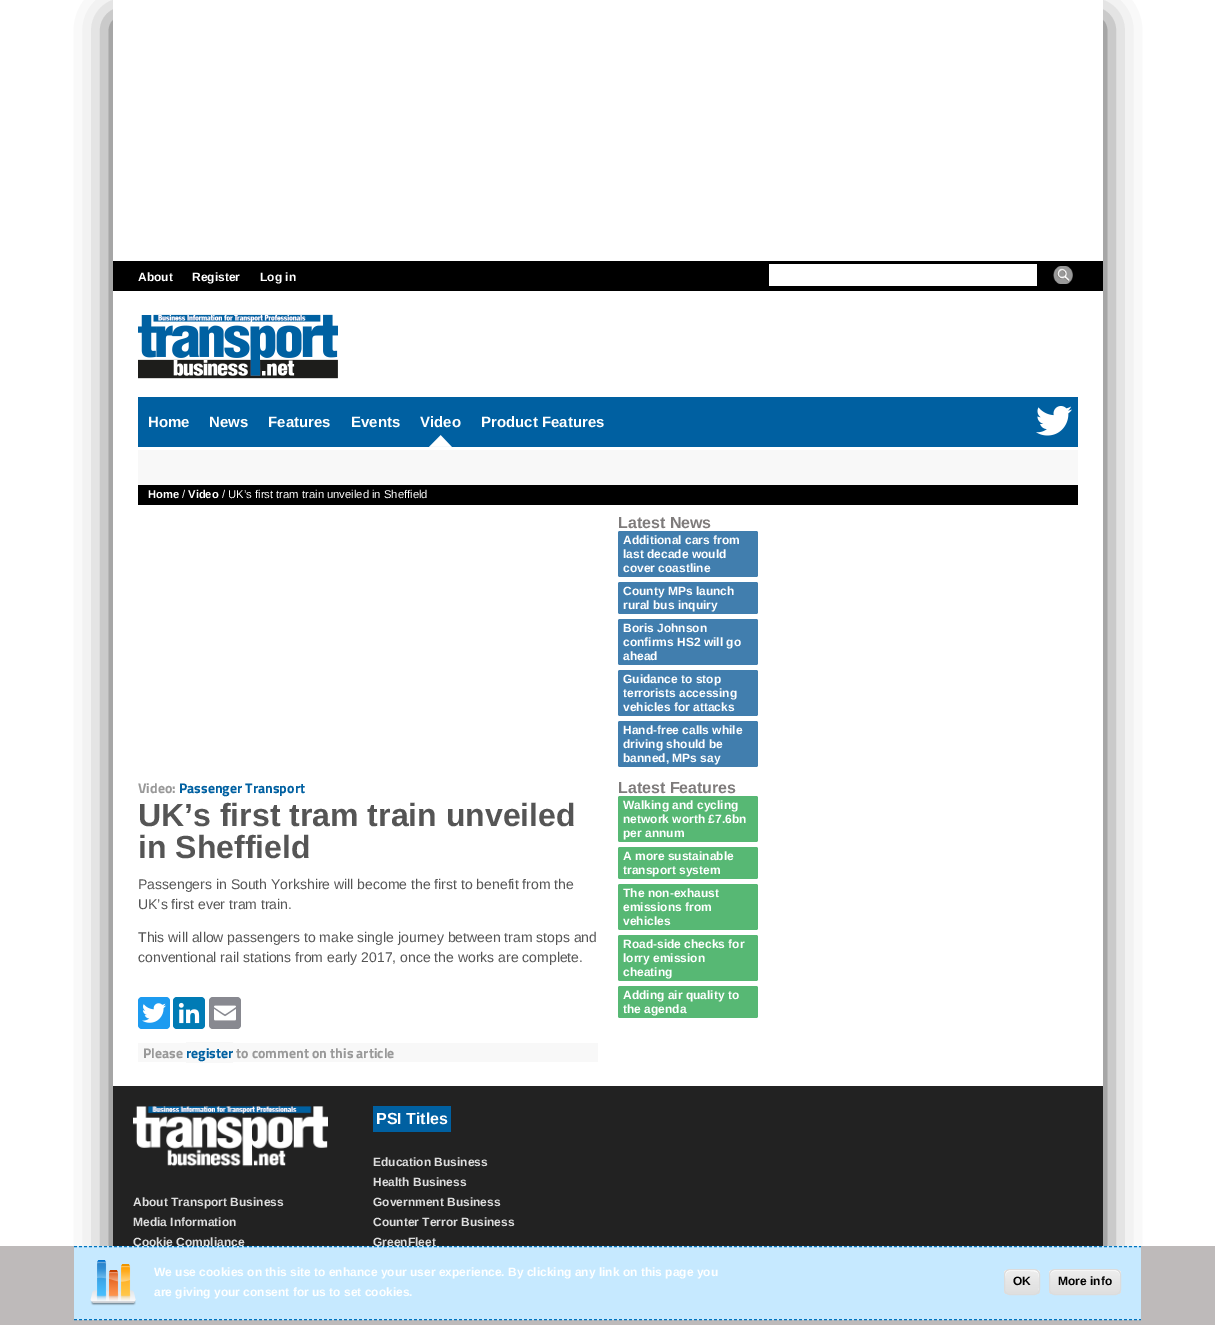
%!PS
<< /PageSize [1215 1325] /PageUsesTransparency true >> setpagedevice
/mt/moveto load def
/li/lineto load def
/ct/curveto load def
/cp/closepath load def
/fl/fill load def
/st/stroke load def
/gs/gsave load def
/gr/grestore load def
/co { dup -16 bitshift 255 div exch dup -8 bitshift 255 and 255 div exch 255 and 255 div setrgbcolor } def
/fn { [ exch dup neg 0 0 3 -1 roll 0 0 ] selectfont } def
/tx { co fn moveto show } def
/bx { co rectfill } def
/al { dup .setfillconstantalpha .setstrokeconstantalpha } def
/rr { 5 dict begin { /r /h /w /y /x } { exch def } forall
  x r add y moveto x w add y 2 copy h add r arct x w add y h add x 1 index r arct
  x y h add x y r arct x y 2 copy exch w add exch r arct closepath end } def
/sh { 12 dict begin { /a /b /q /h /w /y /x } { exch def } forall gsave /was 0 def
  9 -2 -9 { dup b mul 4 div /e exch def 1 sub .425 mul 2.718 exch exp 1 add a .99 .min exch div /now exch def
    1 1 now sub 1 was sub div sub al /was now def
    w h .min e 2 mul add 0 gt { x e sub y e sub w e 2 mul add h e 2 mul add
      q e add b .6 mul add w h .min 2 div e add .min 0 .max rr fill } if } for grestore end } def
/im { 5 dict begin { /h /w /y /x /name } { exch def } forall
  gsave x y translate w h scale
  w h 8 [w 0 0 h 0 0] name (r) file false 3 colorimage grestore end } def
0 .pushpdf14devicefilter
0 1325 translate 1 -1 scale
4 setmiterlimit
0 0 1215 1325 16#FFFFFF bx
gs
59 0 mt 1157 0 li 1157 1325 li 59 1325 li cp 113 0 mt 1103 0 li 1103 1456 li 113 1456 li cp eoclip newpath
16#000000 co
113 20 990 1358 0 17.5 .7 sh
gr
113 261 990 30 16#000000 bx
769 264 268 22 16#FFFFFF bx
(media/1.raw) 1053 266 20 18 im
(media/2.raw) 138 314 200 65 im
138 397 940 50 16#0060A1 bx
(media/3.raw) 429 435 23 12 im
(media/4.raw) 1036 406 36 30 im
138 450 940 35 16#F8F8F8 bx
138 485 940 20 16#000000 bx
16#1D9BF0 co
138 997 32 32 4 rr fl
(media/5.raw) 142 1003 24 20 im
16#007BB5 co
173 997 32 32 4 rr fl
(media/6.raw) 178 1002 22 22 im
16#888990 co
209 997 32 32 4 rr fl
(media/7.raw) 214 1005 22 16 im
138 1043 460 19 16#F8F8F8 bx
186 1042 47 21 16#F8F8F8 bx
16#417EAE co
618 531 140 46 2 rr fl
618 582 140 32 2 rr fl
618 619 140 46 2 rr fl
618 670 140 46 2 rr fl
618 721 140 46 2 rr fl
16#57B874 co
618 796 140 46 2 rr fl
618 847 140 32 2 rr fl
618 884 140 46 2 rr fl
618 935 140 46 2 rr fl
618 986 140 32 2 rr fl
113 1086 990 160 16#222222 bx
(media/8.raw) 133 1106 195 61 im
373 1106 78 26 16#0060A1 bx
(About) 138 281 /LiberationSans-Bold 12 16#FFFFFF tx
(Register) 192 281 /LiberationSans-Bold 12 16#FFFFFF tx
(Log in) 260 281 /LiberationSans-Bold 12 16#FFFFFF tx
(Home) 148 427 /LiberationSans-Bold 15 16#FFFFFF tx
(News) 209 427 /LiberationSans-Bold 15 16#FFFFFF tx
(Features) 268 427 /LiberationSans-Bold 15 16#FFFFFF tx
(Events) 351 427 /LiberationSans-Bold 15 16#FFFFFF tx
(Video) 420 427 /LiberationSans-Bold 15 16#FFFFFF tx
(Product Features) 481 427 /LiberationSans-Bold 15 16#FFFFFF tx
(Home) 148 498 /LiberationSans-Bold 11.25 16#FFFFFF tx
(/) 182 498 /LiberationSans-Regular 11.25 16#FFFFFF tx
(Video) 188 498 /LiberationSans-Bold 11.25 16#FFFFFF tx
(/ UK’s first tram train unveiled in Sheffield) 222 498 /LiberationSans-Regular 11.25 16#FFFFFF tx
(Video:) 138 793 /TitilliumWeb-Bold 14 16#999999 tx
(Passenger Transport) 179 793 /TitilliumWeb-Bold 14 16#0060A1 tx
(UK’s first tram train unveiled) 138 826 /LiberationSans-Bold 32 16#555555 tx
(in Sheffield) 138 858 /LiberationSans-Bold 32 16#555555 tx
(Passengers in South Yorkshire will become the first to benefit from the) 138 889 /LiberationSans-Regular 14 16#555555 tx
(UK’s first ever tram train.) 138 909 /LiberationSans-Regular 14 16#555555 tx
(This will allow passengers to make single journey between tram stops and) 138 942 /LiberationSans-Regular 14 16#555555 tx
(conventional rail stations from early 2017, once the works are complete.) 138 962 /LiberationSans-Regular 14 16#555555 tx
(Please) 143 1058 /TitilliumWeb-Bold 14 16#999999 tx
(register) 186 1058 /TitilliumWeb-Bold 14 16#0060A1 tx
(to comment on this article) 236 1058 /TitilliumWeb-Bold 14 16#999999 tx
(Latest News) 618 528 /LiberationSans-Bold 16 16#7E7B7B tx
(Additional cars from) 623 544 /LiberationSans-Bold 12 16#FFFFFF tx
(last decade would) 623 558 /LiberationSans-Bold 12 16#FFFFFF tx
(cover coastline) 623 572 /LiberationSans-Bold 12 16#FFFFFF tx
(County MPs launch) 623 595 /LiberationSans-Bold 12 16#FFFFFF tx
(rural bus inquiry) 623 609 /LiberationSans-Bold 12 16#FFFFFF tx
(Boris Johnson) 623 632 /LiberationSans-Bold 12 16#FFFFFF tx
(confirms HS2 will go) 623 646 /LiberationSans-Bold 12 16#FFFFFF tx
(ahead) 623 660 /LiberationSans-Bold 12 16#FFFFFF tx
(Guidance to stop) 623 683 /LiberationSans-Bold 12 16#FFFFFF tx
(terrorists accessing) 623 697 /LiberationSans-Bold 12 16#FFFFFF tx
(vehicles for attacks) 623 711 /LiberationSans-Bold 12 16#FFFFFF tx
(Hand-free calls while) 623 734 /LiberationSans-Bold 12 16#FFFFFF tx
(driving should be) 623 748 /LiberationSans-Bold 12 16#FFFFFF tx
(banned, MPs say) 623 762 /LiberationSans-Bold 12 16#FFFFFF tx
(Latest Features) 618 793 /LiberationSans-Bold 16 16#7E7B7B tx
(Walking and cycling) 623 809 /LiberationSans-Bold 12 16#FFFFFF tx
(network worth £7.6bn) 623 823 /LiberationSans-Bold 12 16#FFFFFF tx
(per annum) 623 837 /LiberationSans-Bold 12 16#FFFFFF tx
(A more sustainable) 623 860 /LiberationSans-Bold 12 16#FFFFFF tx
(transport system) 623 874 /LiberationSans-Bold 12 16#FFFFFF tx
(The non-exhaust) 623 897 /LiberationSans-Bold 12 16#FFFFFF tx
(emissions from) 623 911 /LiberationSans-Bold 12 16#FFFFFF tx
(vehicles) 623 925 /LiberationSans-Bold 12 16#FFFFFF tx
(Road-side checks for) 623 948 /LiberationSans-Bold 12 16#FFFFFF tx
(lorry emission) 623 962 /LiberationSans-Bold 12 16#FFFFFF tx
(cheating) 623 976 /LiberationSans-Bold 12 16#FFFFFF tx
(Adding air quality to) 623 999 /LiberationSans-Bold 12 16#FFFFFF tx
(the agenda) 623 1013 /LiberationSans-Bold 12 16#FFFFFF tx
(About Transport Business) 133 1206 /LiberationSans-Bold 12 16#DDDDDD tx
(Media Information) 133 1226 /LiberationSans-Bold 12 16#DDDDDD tx
(Cookie Compliance) 133 1246 /LiberationSans-Bold 12 16#DDDDDD tx
(PSI Titles) 376 1124 /LiberationSans-Bold 16 16#FFFFFF tx
(Education Business) 373 1166 /LiberationSans-Bold 12 16#DDDDDD tx
(Health Business) 373 1186 /LiberationSans-Bold 12 16#DDDDDD tx
(Government Business) 373 1206 /LiberationSans-Bold 12 16#DDDDDD tx
(Counter Terror Business) 373 1226 /LiberationSans-Bold 12 16#DDDDDD tx
(GreenFleet) 373 1246 /LiberationSans-Bold 12 16#DDDDDD tx
0 1246 1215 79 16#BEBABA bx
74 1246 1067 74 16#C6E9FF bx
(media/9.raw) 90 1260 46 46 im
16#0173BD co
[3 2] 0 setdash
74 1246.5 mt 1141 1246.5 li st
74 1319.5 mt 1141 1319.5 li st
(We use cookies on this site to enhance your user experience. By clicking any link on this page you) 154 1276 /LiberationSans-Bold 12 16#FFFFFF tx
(are giving your consent for us to set cookies.) 154 1296 /LiberationSans-Bold 12 16#FFFFFF tx
gs
1004 1269 36 26 6 rr clip newpath
gs 1004 1270 mt 1040 1270 li 1040 1294 li 1004 1294 li cp clip newpath
<< /ShadingType 2 /ColorSpace /DeviceRGB /Coords [1022 1270 1022 1294] /Extend [true true] /Function << /FunctionType 3 /Domain [0 1] /Functions [<< /FunctionType 2 /Domain [0 1] /C0 [.929 .929 .929] /C1 [.929 .929 .929] /N 1 >> << /FunctionType 2 /Domain [0 1] /C0 [.929 .929 .929] /C1 [.875 .875 .875] /N 1 >>] /Bounds [.05] /Encode [0 1 0 1] >> >> shfill gr
gr
1010 1271 mt 1030 1271 li 1037.5 1271 1039 1272.5 1039 1277.5 ct 1039 1270 1036.5 1270 1030 1270 ct 1014 1270 li 1006.5 1270 1005 1270.5 1005 1278 ct 1005 1275 1006 1271 1010 1271 ct cp 1039 1288.5 mt 1038.5 1290.5 li cp 1005 1289.5 mt 1005 1288 li cp eofill
16#DCDCDC co
[] 0 setdash
1004.5 1269.5 35 25 5.5 rr st
(OK) 1013 1285 /LiberationSans-Bold 12 16#000000 tx
gs
1049 1269 72 26 6 rr clip newpath
gs 1049 1270 mt 1121 1270 li 1121 1294 li 1049 1294 li cp clip newpath
<< /ShadingType 2 /ColorSpace /DeviceRGB /Coords [1085 1270 1085 1294] /Extend [true true] /Function << /FunctionType 3 /Domain [0 1] /Functions [<< /FunctionType 2 /Domain [0 1] /C0 [.929 .929 .929] /C1 [.929 .929 .929] /N 1 >> << /FunctionType 2 /Domain [0 1] /C0 [.929 .929 .929] /C1 [.875 .875 .875] /N 1 >>] /Bounds [.05] /Encode [0 1 0 1] >> >> shfill gr
gr
16#FFFFFF co
1055 1271 mt 1115 1271 li 1118 1271 1120 1273 1120 1276 ct 1120 1268 1111 1270 1105 1270 ct 1065 1270 li 1059 1270 1050 1268 1050 1276 ct 1050 1273 1052 1271 1055 1271 ct cp fl
16#DCDCDC co
1049.5 1269.5 71 25 5.5 rr st
(More info) 1058 1285 /LiberationSans-Bold 12 16#000000 tx
.poppdf14devicefilter showpage
